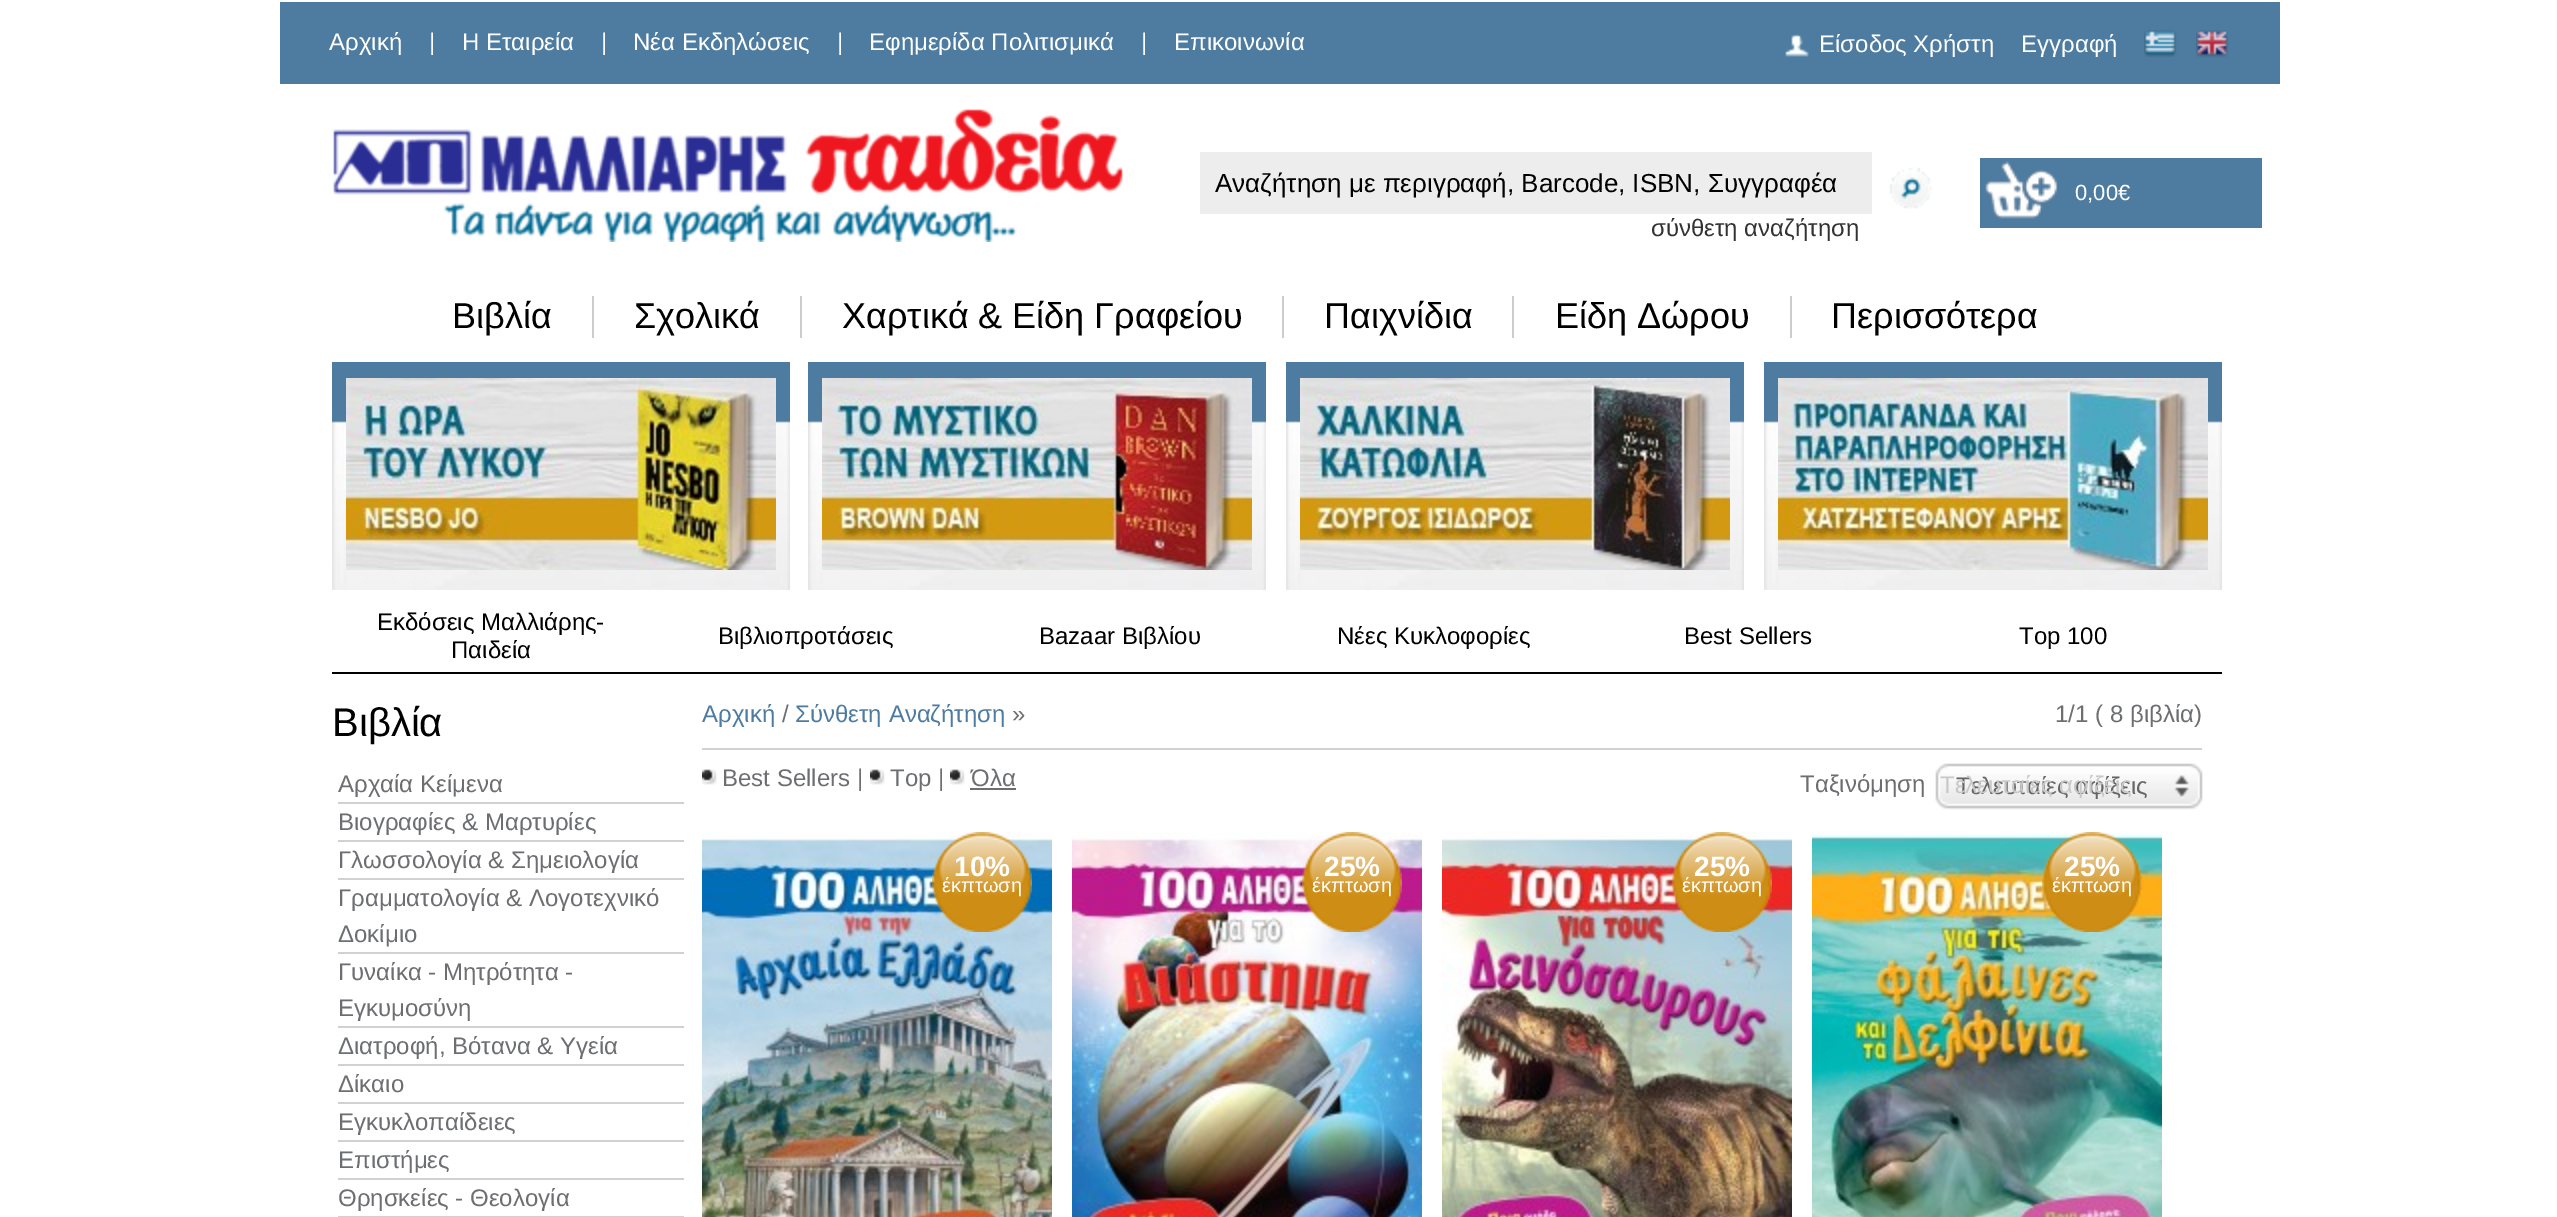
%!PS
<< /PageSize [2557 1217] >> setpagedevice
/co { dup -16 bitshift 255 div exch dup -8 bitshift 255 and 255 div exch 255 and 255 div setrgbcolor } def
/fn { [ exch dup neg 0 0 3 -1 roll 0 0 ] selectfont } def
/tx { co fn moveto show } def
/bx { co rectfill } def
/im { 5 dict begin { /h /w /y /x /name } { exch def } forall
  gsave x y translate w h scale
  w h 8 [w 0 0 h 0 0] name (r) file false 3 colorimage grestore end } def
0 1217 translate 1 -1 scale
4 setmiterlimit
0 0 2557 1217 16#FFFFFF bx
280 2 2000 82 16#4E7CA0 bx
(media/1.raw) 1784 34 25 23 im
(media/2.raw) 2144 30 33 28 im
(media/3.raw) 2196 30 33 28 im
(media/4.raw) 333 109 790 133 im
1200 152 672 62 16#EDEDED bx
(media/5.raw) 1889 167 43 42 im
(media/6.raw) 1980 158 282 70 im
592 296 2 42 16#CCCCCC bx
800 296 2 42 16#CCCCCC bx
1282 296 2 42 16#CCCCCC bx
1512 296 2 42 16#CCCCCC bx
1790 296 2 42 16#CCCCCC bx
(media/7.raw) 332 362 458 228 im
(media/8.raw) 346 378 430 192 im
(media/7.raw) 808 362 458 228 im
(media/9.raw) 822 378 430 192 im
(media/7.raw) 1286 362 458 228 im
(media/10.raw) 1300 378 430 192 im
(media/7.raw) 1764 362 458 228 im
(media/11.raw) 1778 378 430 192 im
332 672 1890 2 16#000000 bx
338 802 346 2 16#D1D1D1 bx
338 840 346 2 16#D1D1D1 bx
338 878 346 2 16#D1D1D1 bx
338 952 346 2 16#D1D1D1 bx
338 1026 346 2 16#D1D1D1 bx
338 1064 346 2 16#D1D1D1 bx
338 1102 346 2 16#D1D1D1 bx
338 1140 346 2 16#D1D1D1 bx
338 1178 346 2 16#D1D1D1 bx
338 1216 346 1 16#D1D1D1 bx
702 748 1500 2 16#D1D1D1 bx
(media/12.raw) 702 769 15 16 im
(media/12.raw) 870 769 15 16 im
(media/12.raw) 950 769 15 16 im
970 788 46 2 16#6D6E71 bx
(media/13.raw) 1935 763 17 47 im
(media/14.raw) 1952 763 251 47 im
(media/15.raw) 702 832 350 385 im
(media/16.raw) 932 832 100 100 im
(media/17.raw) 1072 832 350 385 im
(media/18.raw) 1302 832 100 100 im
(media/19.raw) 1442 832 350 385 im
(media/20.raw) 1672 832 100 100 im
(media/21.raw) 1812 834 350 383 im
(media/22.raw) 2042 832 100 100 im
(Αρχική) 329 50 /LiberationSans-Regular 24 16#FFFFFF tx
(|) 429 50 /LiberationSans-Regular 24 16#FFFFFF tx
(H Εταιρεία) 462 50 /LiberationSans-Regular 24 16#FFFFFF tx
(|) 601 50 /LiberationSans-Regular 24 16#FFFFFF tx
(Νέα Εκδηλώσεις) 633 50 /LiberationSans-Regular 24 16#FFFFFF tx
(|) 837 50 /LiberationSans-Regular 24 16#FFFFFF tx
(Εφημερίδα Πολιτισμικά) 869 50 /LiberationSans-Regular 24 16#FFFFFF tx
(|) 1141 50 /LiberationSans-Regular 24 16#FFFFFF tx
(Επικοινωνία) 1174 50 /LiberationSans-Regular 24 16#FFFFFF tx
(Είσοδος Χρήστη) 1819 52 /LiberationSans-Regular 24 16#FFFFFF tx
(Εγγραφή) 2021 52 /LiberationSans-Regular 24 16#FFFFFF tx
(Αναζήτηση με περιγραφή, Barcode, ISBN, Συγγραφέα) 1215 192 /LiberationSans-Regular 26 16#000000 tx
(σύνθετη αναζήτηση) 1651 236 /LiberationSans-Regular 24 16#333333 tx
(0,00€) 2075 200 /LiberationSans-Regular 22 16#FFFFFF tx
(Βιβλία) 452 328 /LiberationSans-Regular 36 16#000000 tx
(Σχολικά) 634 328 /LiberationSans-Regular 36 16#000000 tx
(Χαρτικά & Είδη Γραφείου) 842 328 /LiberationSans-Regular 36 16#000000 tx
(Παιχνίδια) 1324 328 /LiberationSans-Regular 36 16#000000 tx
(Είδη Δώρου) 1555 328 /LiberationSans-Regular 36 16#000000 tx
(Περισσότερα) 1831 328 /LiberationSans-Regular 36 16#000000 tx
(Εκδόσεις Μαλλιάρης-) 377 630 /LiberationSans-Regular 24 16#000000 tx
(Παιδεία) 451 658 /LiberationSans-Regular 24 16#000000 tx
(Βιβλιοπροτάσεις) 718 644 /LiberationSans-Regular 24 16#000000 tx
(Bazaar Βιβλίου) 1039 644 /LiberationSans-Regular 24 16#000000 tx
(Νέες Κυκλοφορίες) 1337 644 /LiberationSans-Regular 24 16#000000 tx
(Best Sellers) 1684 644 /LiberationSans-Regular 24 16#000000 tx
(Top 100) 2019 644 /LiberationSans-Regular 24 16#000000 tx
(Βιβλία) 332 736 /LiberationSans-Regular 40 16#000000 tx
(Αρχαία Κείμενα) 338 792 /LiberationSans-Regular 24 16#6D6E71 tx
(Βιογραφίες & Μαρτυρίες) 338 830 /LiberationSans-Regular 24 16#6D6E71 tx
(Γλωσσολογία & Σημειολογία) 338 868 /LiberationSans-Regular 24 16#6D6E71 tx
(Γραμματολογία & Λογοτεχνικό) 338 906 /LiberationSans-Regular 24 16#6D6E71 tx
(Δοκίμιο) 338 942 /LiberationSans-Regular 24 16#6D6E71 tx
(Γυναίκα - Μητρότητα -) 338 980 /LiberationSans-Regular 24 16#6D6E71 tx
(Εγκυμοσύνη) 338 1016 /LiberationSans-Regular 24 16#6D6E71 tx
(Διατροφή, Βότανα & Υγεία) 338 1054 /LiberationSans-Regular 24 16#6D6E71 tx
(Δίκαιο) 338 1092 /LiberationSans-Regular 24 16#6D6E71 tx
(Εγκυκλοπαίδειες) 338 1130 /LiberationSans-Regular 24 16#6D6E71 tx
(Επιστήμες) 338 1168 /LiberationSans-Regular 24 16#6D6E71 tx
(Θρησκείες - Θεολογία) 338 1206 /LiberationSans-Regular 24 16#6D6E71 tx
(Αρχική) 702 722 /LiberationSans-Regular 24 16#4E7CA0 tx
(/) 782 722 /LiberationSans-Regular 24 16#6D6E71 tx
(Σύνθετη Αναζήτηση) 795 722 /LiberationSans-Regular 24 16#4E7CA0 tx
(») 1012 722 /LiberationSans-Regular 24 16#6D6E71 tx
(1/1 \( 8 βιβλία\)) 2055 722 /LiberationSans-Regular 24 16#6D6E71 tx
(Best Sellers |) 722 786 /LiberationSans-Regular 24 16#6D6E71 tx
(Top |) 890 786 /LiberationSans-Regular 24 16#6D6E71 tx
(Όλα) 971 786 /LiberationSans-Regular 24 16#6D6E71 tx
(Ταξινόμηση) 1800 792 /LiberationSans-Regular 24 16#6D6E71 tx
(Τελευταίες αφίξεις) 1956 794 /LiberationSans-Regular 24 16#666666 tx
(Τελευταίες αφίξεις) 1940 793 /LiberationSans-Regular 24 16#C8C8C8 tx
(10%) 954 876 /LiberationSans-Bold 28 16#FFFFFF tx
(έκπτωση) 942 892 /LiberationSans-Regular 20 16#FFFFFF tx
(25%) 1324 876 /LiberationSans-Bold 28 16#FFFFFF tx
(έκπτωση) 1312 892 /LiberationSans-Regular 20 16#FFFFFF tx
(25%) 1694 876 /LiberationSans-Bold 28 16#FFFFFF tx
(έκπτωση) 1682 892 /LiberationSans-Regular 20 16#FFFFFF tx
(25%) 2064 876 /LiberationSans-Bold 28 16#FFFFFF tx
(έκπτωση) 2052 892 /LiberationSans-Regular 20 16#FFFFFF tx
showpage
